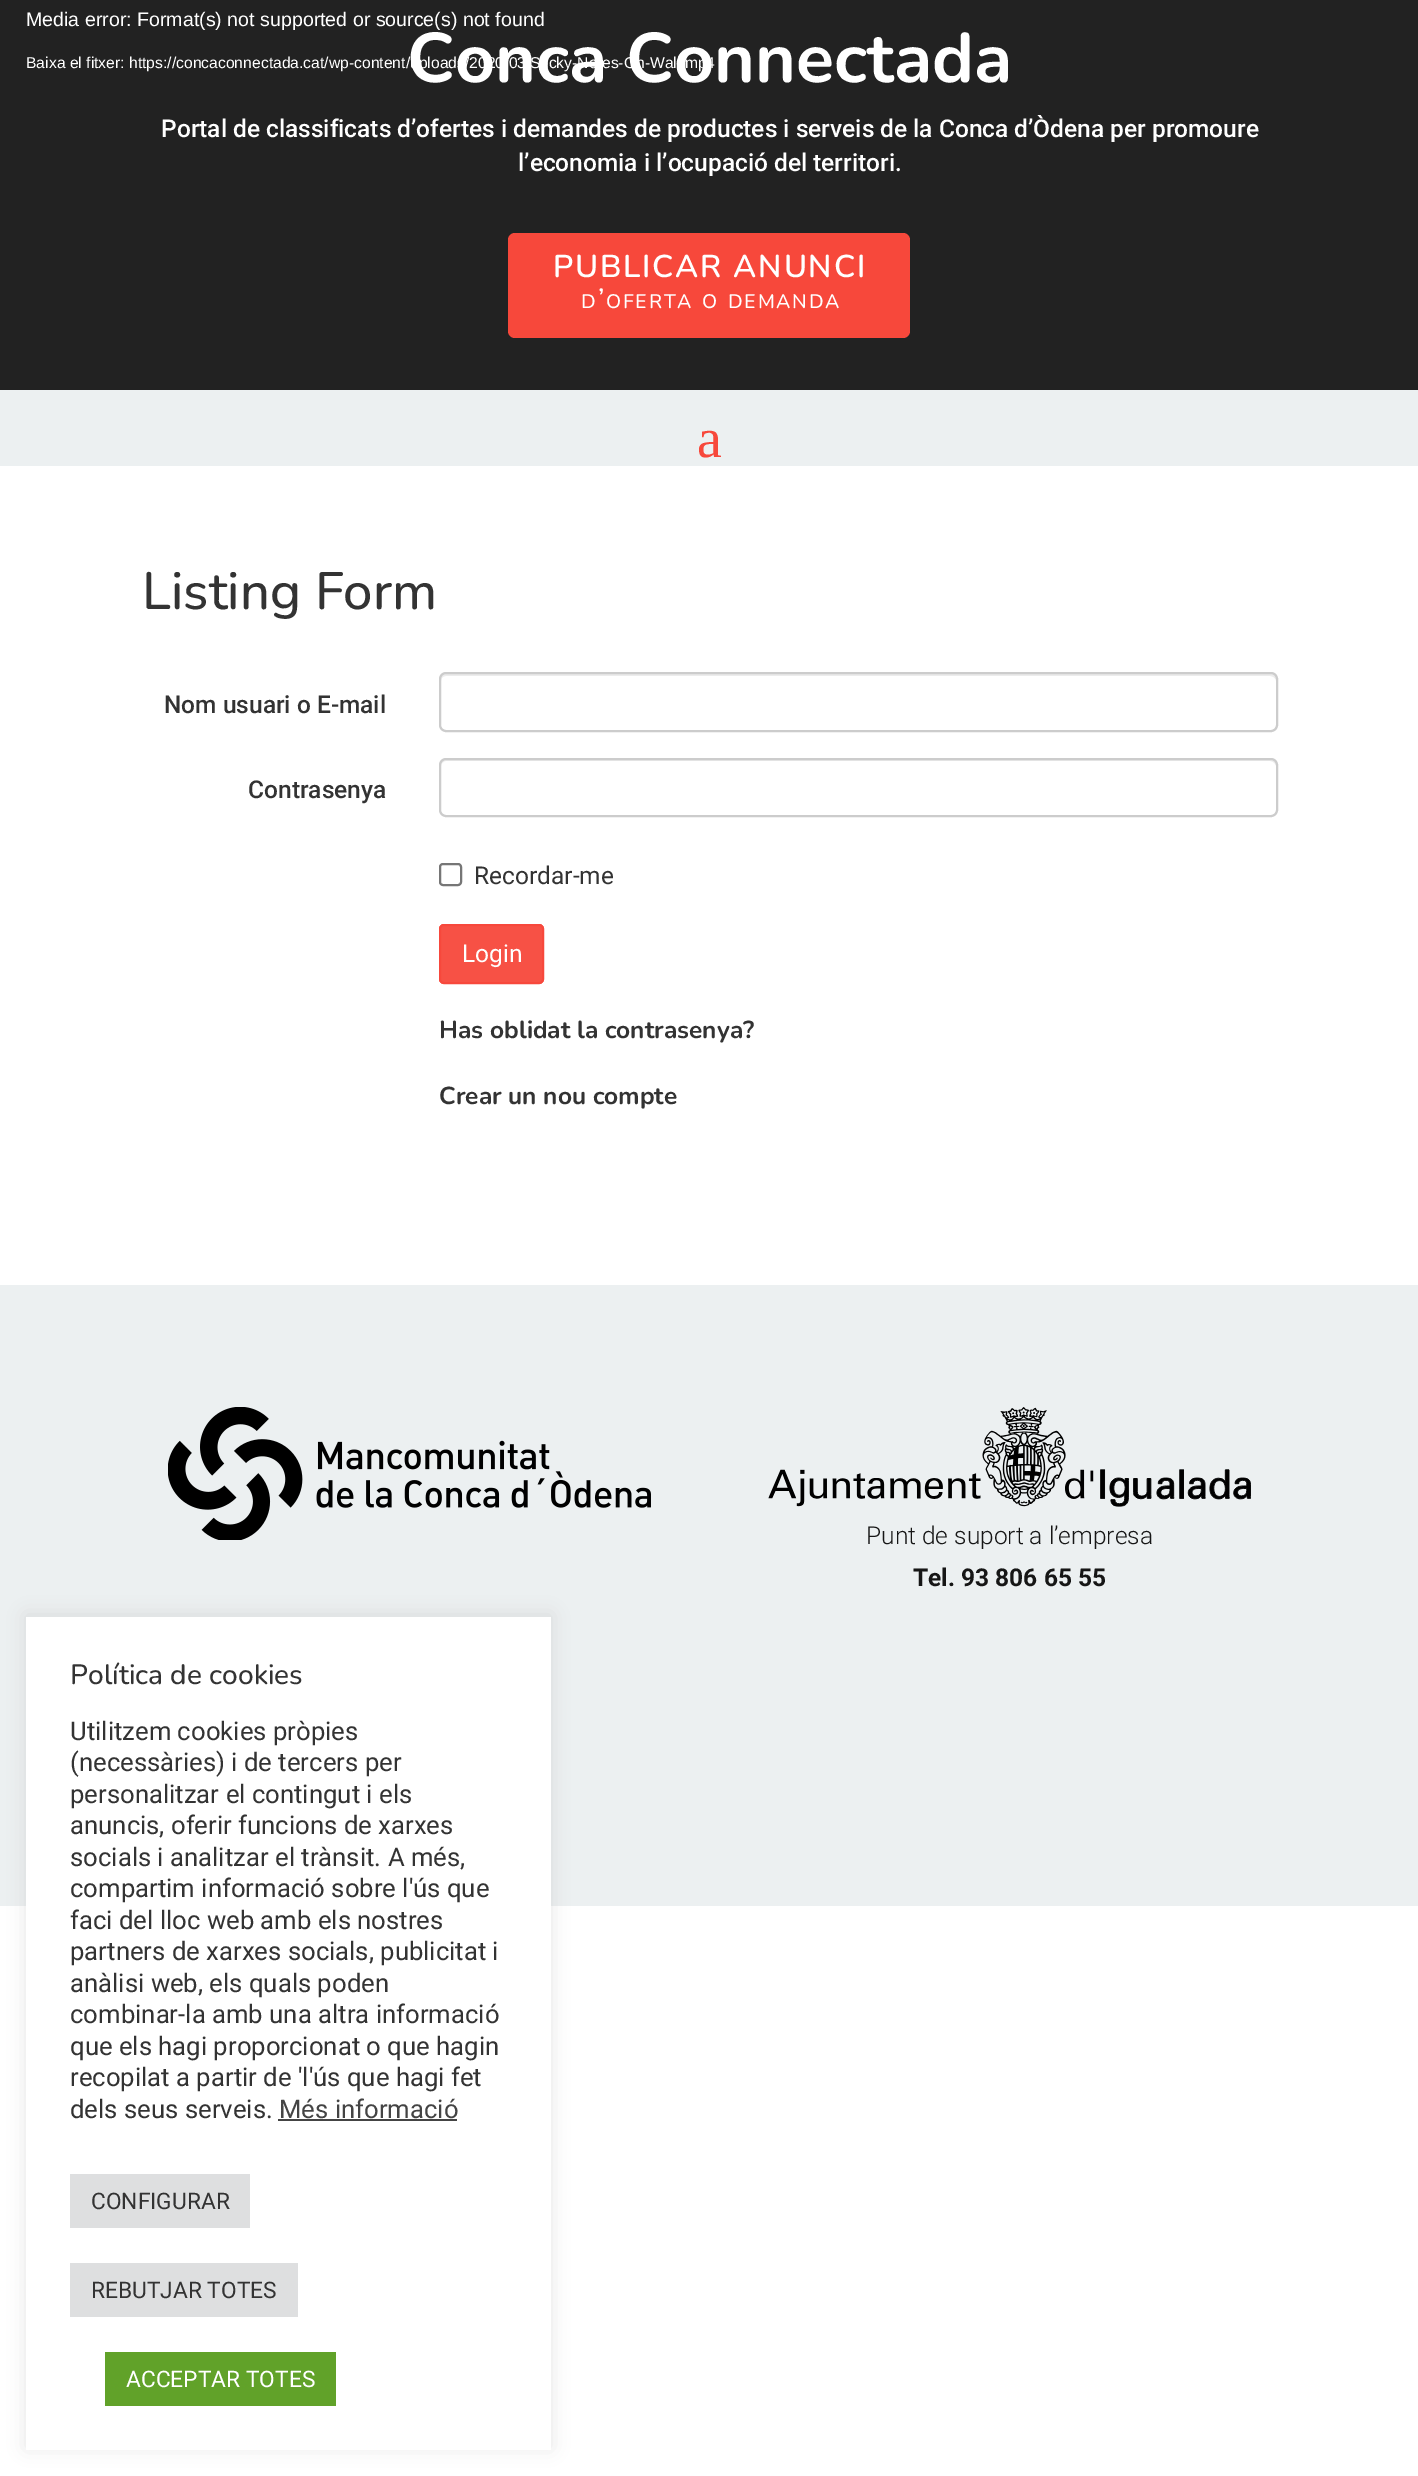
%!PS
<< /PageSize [1418 2476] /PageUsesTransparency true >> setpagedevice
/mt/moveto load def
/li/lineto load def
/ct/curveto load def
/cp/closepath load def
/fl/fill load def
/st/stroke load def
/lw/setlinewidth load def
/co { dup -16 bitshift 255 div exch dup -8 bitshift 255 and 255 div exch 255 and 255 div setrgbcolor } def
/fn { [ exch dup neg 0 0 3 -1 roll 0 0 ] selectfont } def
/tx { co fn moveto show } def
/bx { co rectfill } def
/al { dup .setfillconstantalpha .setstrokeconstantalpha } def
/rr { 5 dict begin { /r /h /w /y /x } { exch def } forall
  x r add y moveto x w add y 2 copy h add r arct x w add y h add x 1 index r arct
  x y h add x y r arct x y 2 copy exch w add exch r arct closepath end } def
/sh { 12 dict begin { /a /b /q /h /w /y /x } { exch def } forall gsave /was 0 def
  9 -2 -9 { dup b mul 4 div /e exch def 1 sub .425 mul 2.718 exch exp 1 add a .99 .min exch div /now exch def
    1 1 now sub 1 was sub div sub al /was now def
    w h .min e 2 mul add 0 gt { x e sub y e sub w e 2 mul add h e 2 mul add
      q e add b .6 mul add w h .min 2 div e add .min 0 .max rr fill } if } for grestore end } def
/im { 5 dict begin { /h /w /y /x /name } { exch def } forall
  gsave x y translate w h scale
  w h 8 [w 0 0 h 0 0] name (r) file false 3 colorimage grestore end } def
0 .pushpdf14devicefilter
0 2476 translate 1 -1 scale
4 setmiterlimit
0 0 1418 2476 16#FFFFFF bx
0 0 1418 390 16#222222 bx
16#F7483B co
508 233 402 105 7 rr fl
0 390 1418 76 16#ECF0F1 bx
16#ECECEC co
446 676 mt 1270 676 li 1273 676 1276 678 1276 681 ct 1276 679 li 1276 676 1274 674 1271 674 ct 446 674 li 443 674 441 676 441 679 ct 441 681 li 441 678 443 676 446 676 ct cp fl
16#CCCCCC co
2 lw
440 673 837 58 6 rr st
16#ECECEC co
446 761 mt 1270 761 li 1273 761 1276 764 1276 766 ct 1276 765 li 1276 762 1274 760 1271 760 ct 446 760 li 443 760 441 762 441 765 ct 441 766 li 441 764 443 761 446 761 ct cp fl
16#CCCCCC co
440 759 837 57 6 rr st
16#767676 co
440 864 21 21 3 rr st
16#F75145 co
439 924 105 60 5 rr fl
0.95 al
16#F7483B co
440 925 103 58 4 rr st
1 al
0 1285 1418 621 16#ECF0F1 bx
(media/1.raw) 168 1407 483 133 im
(media/2.raw) 768 1407 483 100 im
16#ACABAB co
26 1615 525 833 0 9 .3 sh
26 1617 525 833 16#FFFFFF bx
278 2119 179 2 16#444444 bx
70 2174 180 54 16#DEDFE0 bx
70 2263 228 54 16#DEDFE0 bx
105 2352 231 54 16#61A229 bx
(Media error: Format\(s\) not supported or source\(s\) not found) 26 26 /LiberationSans-Regular 19.6 16#FFFFFF tx
(Baixa el fitxer: https://concaconnectada.cat/wp-content/uploads/2020/03/Sticky-Notes-On-Wall.mp4) 26 68 /LiberationSans-Regular 15.7 16#FFFFFF tx
(Conca Connectada) 407 82 /Nunito-Bold 70 16#FFFFFF tx
(Portal de classificats d’ofertes i demandes de productes i serveis de la Conca d’Òdena per promoure) 161 137 /Roboto-Medium 24.5 16#FFFFFF tx
(l’economia i l’ocupació del territori.) 518 171 /Roboto-Medium 24.5 16#FFFFFF tx
/Nunito-SemiBold 31.5 fn
553 277 mt 1.75 0 (PUBLICAR ANUNCI) ashow
/Nunito-Medium 28 fn
598 308 mt 1.75 0 (’) ashow
/Nunito-Medium 19.6 fn
581 308 mt 1.75 0 (D) ashow
606 308 mt 1.75 0 (OFERTA) ashow
702 308 mt 1.75 0 (O) ashow
728 308 mt 1.75 0 (DEMANDA) ashow
(a) 697 457 /LiberationSerif-Regular 56 16#F7483B tx
(Listing Form) 142 609 /Nunito-Medium 52.5 16#333333 tx
(Nom usuari o E-mail) 164 713 /Roboto-Medium 24.5 16#333333 tx
(Contrasenya) 248 798 /Roboto-Medium 24.5 16#333333 tx
(Recordar-me) 474 884 /Roboto-Regular 24.5 16#333333 tx
(Login) 462 962 /Roboto-Regular 24.5 16#FFFFFF tx
(Has oblidat la contrasenya?) 439 1038 /Nunito-Bold 24.5 16#333333 tx
(Crear un nou compte) 439 1104 /Nunito-Bold 24.5 16#333333 tx
(Punt de suport a l’empresa) 866 1544 /Roboto-Light 24.5 16#161616 tx
(Tel. 93 806 65 55) 913 1586 /Roboto-Bold 24.5 16#161616 tx
(Política de cookies) 70 1684 /Nunito-Medium 28 16#333333 tx
(Utilitzem cookies pròpies) 70 1740 /Roboto-Regular 25.7 16#333333 tx
(\(necessàries\) i de tercers per) 70 1771 /Roboto-Regular 25.7 16#333333 tx
(personalitzar el contingut i els) 70 1803 /Roboto-Regular 25.7 16#333333 tx
(anuncis, oferir funcions de xarxes) 70 1834 /Roboto-Regular 25.7 16#333333 tx
(socials i analitzar el trànsit. A més,) 70 1866 /Roboto-Regular 25.7 16#333333 tx
(compartim informació sobre l'ús que) 70 1897 /Roboto-Regular 25.7 16#333333 tx
(faci del lloc web amb els nostres) 70 1929 /Roboto-Regular 25.7 16#333333 tx
(partners de xarxes socials, publicitat i) 70 1960 /Roboto-Regular 25.7 16#333333 tx
(anàlisi web, els quals poden) 70 1992 /Roboto-Regular 25.7 16#333333 tx
(combinar-la amb una altra informació) 70 2023 /Roboto-Regular 25.7 16#333333 tx
(que els hagi proporcionat o que hagin) 70 2055 /Roboto-Regular 25.7 16#333333 tx
(recopilat a partir de 'l'ús que hagi fet) 70 2086 /Roboto-Regular 25.7 16#333333 tx
(dels seus serveis.) 70 2118 /Roboto-Regular 25.7 16#333333 tx
(Més informació) 279 2118 /Roboto-Regular 25.7 16#444444 tx
(CONFIGURAR) 91 2209 /Roboto-Regular 22.75 16#333333 tx
(REBUTJAR TOTES) 91 2298 /Roboto-Regular 22.75 16#333333 tx
(ACCEPTAR TOTES) 126 2387 /Roboto-Regular 22.75 16#FFFFFF tx
.poppdf14devicefilter showpage
